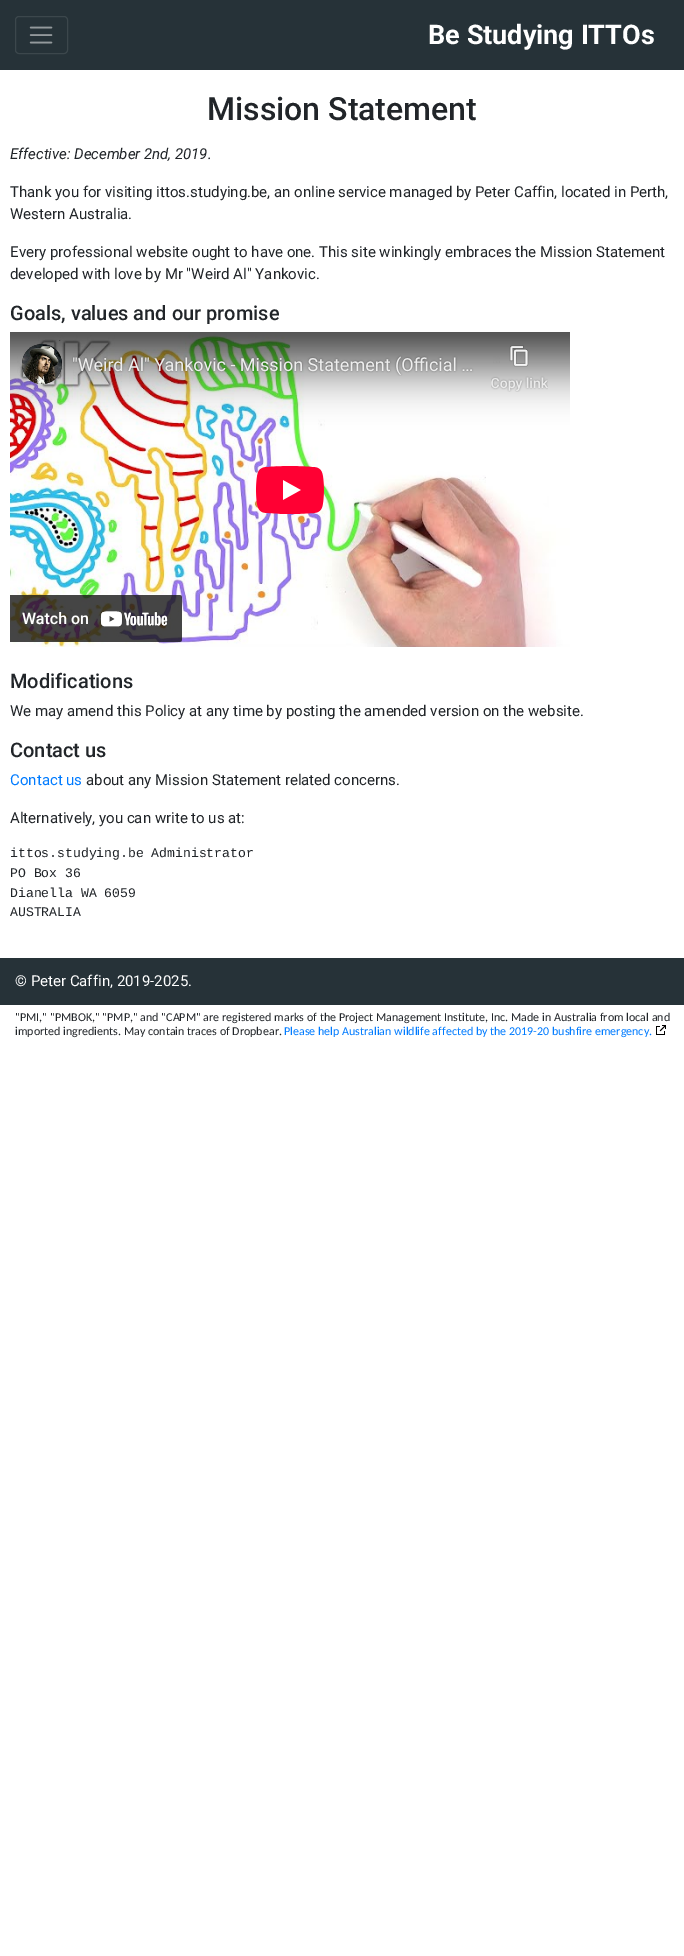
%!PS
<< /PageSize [684 1956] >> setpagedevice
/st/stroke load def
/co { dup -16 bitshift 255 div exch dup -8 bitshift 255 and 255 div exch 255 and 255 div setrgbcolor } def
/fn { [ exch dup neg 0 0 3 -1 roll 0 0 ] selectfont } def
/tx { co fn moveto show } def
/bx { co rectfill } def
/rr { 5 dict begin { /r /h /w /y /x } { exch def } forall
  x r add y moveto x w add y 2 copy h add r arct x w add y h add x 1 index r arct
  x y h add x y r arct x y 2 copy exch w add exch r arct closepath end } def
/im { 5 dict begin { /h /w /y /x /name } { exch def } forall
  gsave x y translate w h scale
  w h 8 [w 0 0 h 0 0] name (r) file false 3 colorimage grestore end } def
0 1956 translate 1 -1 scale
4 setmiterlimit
0 0 684 1956 16#FFFFFF bx
0 0 684 70 16#263238 bx
16#3C474C co
15.5 16.5 52 37 3.5 rr st
(media/1.raw) 29 26 24 18 im
(media/2.raw) 10 332 560 315 im
0 958 684 47 16#263238 bx
(media/3.raw) 656 1025 10 10 im
(Be Studying ITTOs) 428 44 /Roboto-Bold 27 16#FFFFFF tx
(Mission Statement) 207 120 /Roboto-Medium 32 16#212529 tx
(Effective: December 2nd, 2019.) 10 159 /Roboto-Italic 15 16#212529 tx
(Thank you for visiting ittos.studying.be, an online service managed by Peter Caffin, located in Perth,) 10 197 /Roboto-Regular 15 16#212529 tx
(Western Australia.) 10 219 /Roboto-Regular 15 16#212529 tx
(Every professional website ought to have one. This site winkingly embraces the Mission Statement) 10 257 /Roboto-Regular 15 16#212529 tx
(developed with love by Mr "Weird Al" Yankovic.) 10 279 /Roboto-Regular 15 16#212529 tx
(Goals, values and our promise) 10 320 /Roboto-Medium 20 16#212529 tx
(Modifications) 10 688 /Roboto-Medium 20 16#212529 tx
(We may amend this Policy at any time by posting the amended version on the website.) 10 716 /Roboto-Regular 15 16#212529 tx
(Contact us) 10 757 /Roboto-Medium 20 16#212529 tx
(Contact us) 10 785 /Roboto-Regular 15 16#007BFF tx
(about any Mission Statement related concerns.) 86 785 /Roboto-Regular 15 16#212529 tx
(Alternatively, you can write to us at:) 10 823 /Roboto-Regular 15 16#212529 tx
(ittos.studying.be Administrator) 10 857 /LiberationMono-Regular 13.1 16#212529 tx
(PO Box 36) 10 877 /LiberationMono-Regular 13.1 16#212529 tx
(Dianella WA 6059) 10 897 /LiberationMono-Regular 13.1 16#212529 tx
(AUSTRALIA) 10 916 /LiberationMono-Regular 13.1 16#212529 tx
(© Peter Caffin, 2019-2025.) 15 986 /Roboto-Regular 15 16#FFFFFF tx
("PMI," "PMBOK," "PMP," and "CAPM" are registered marks of the Project Management Institute, Inc. Made in Australia from local and) 15 1021 /Carlito-Regular 12 16#212529 tx
(imported ingredients. May contain traces of Dropbear.) 15 1035 /Carlito-Regular 12 16#212529 tx
(Please help Australian wildlife affected by the 2019-20 bushfire emergency.) 284 1035 /Carlito-Regular 12 16#007BFF tx
showpage
